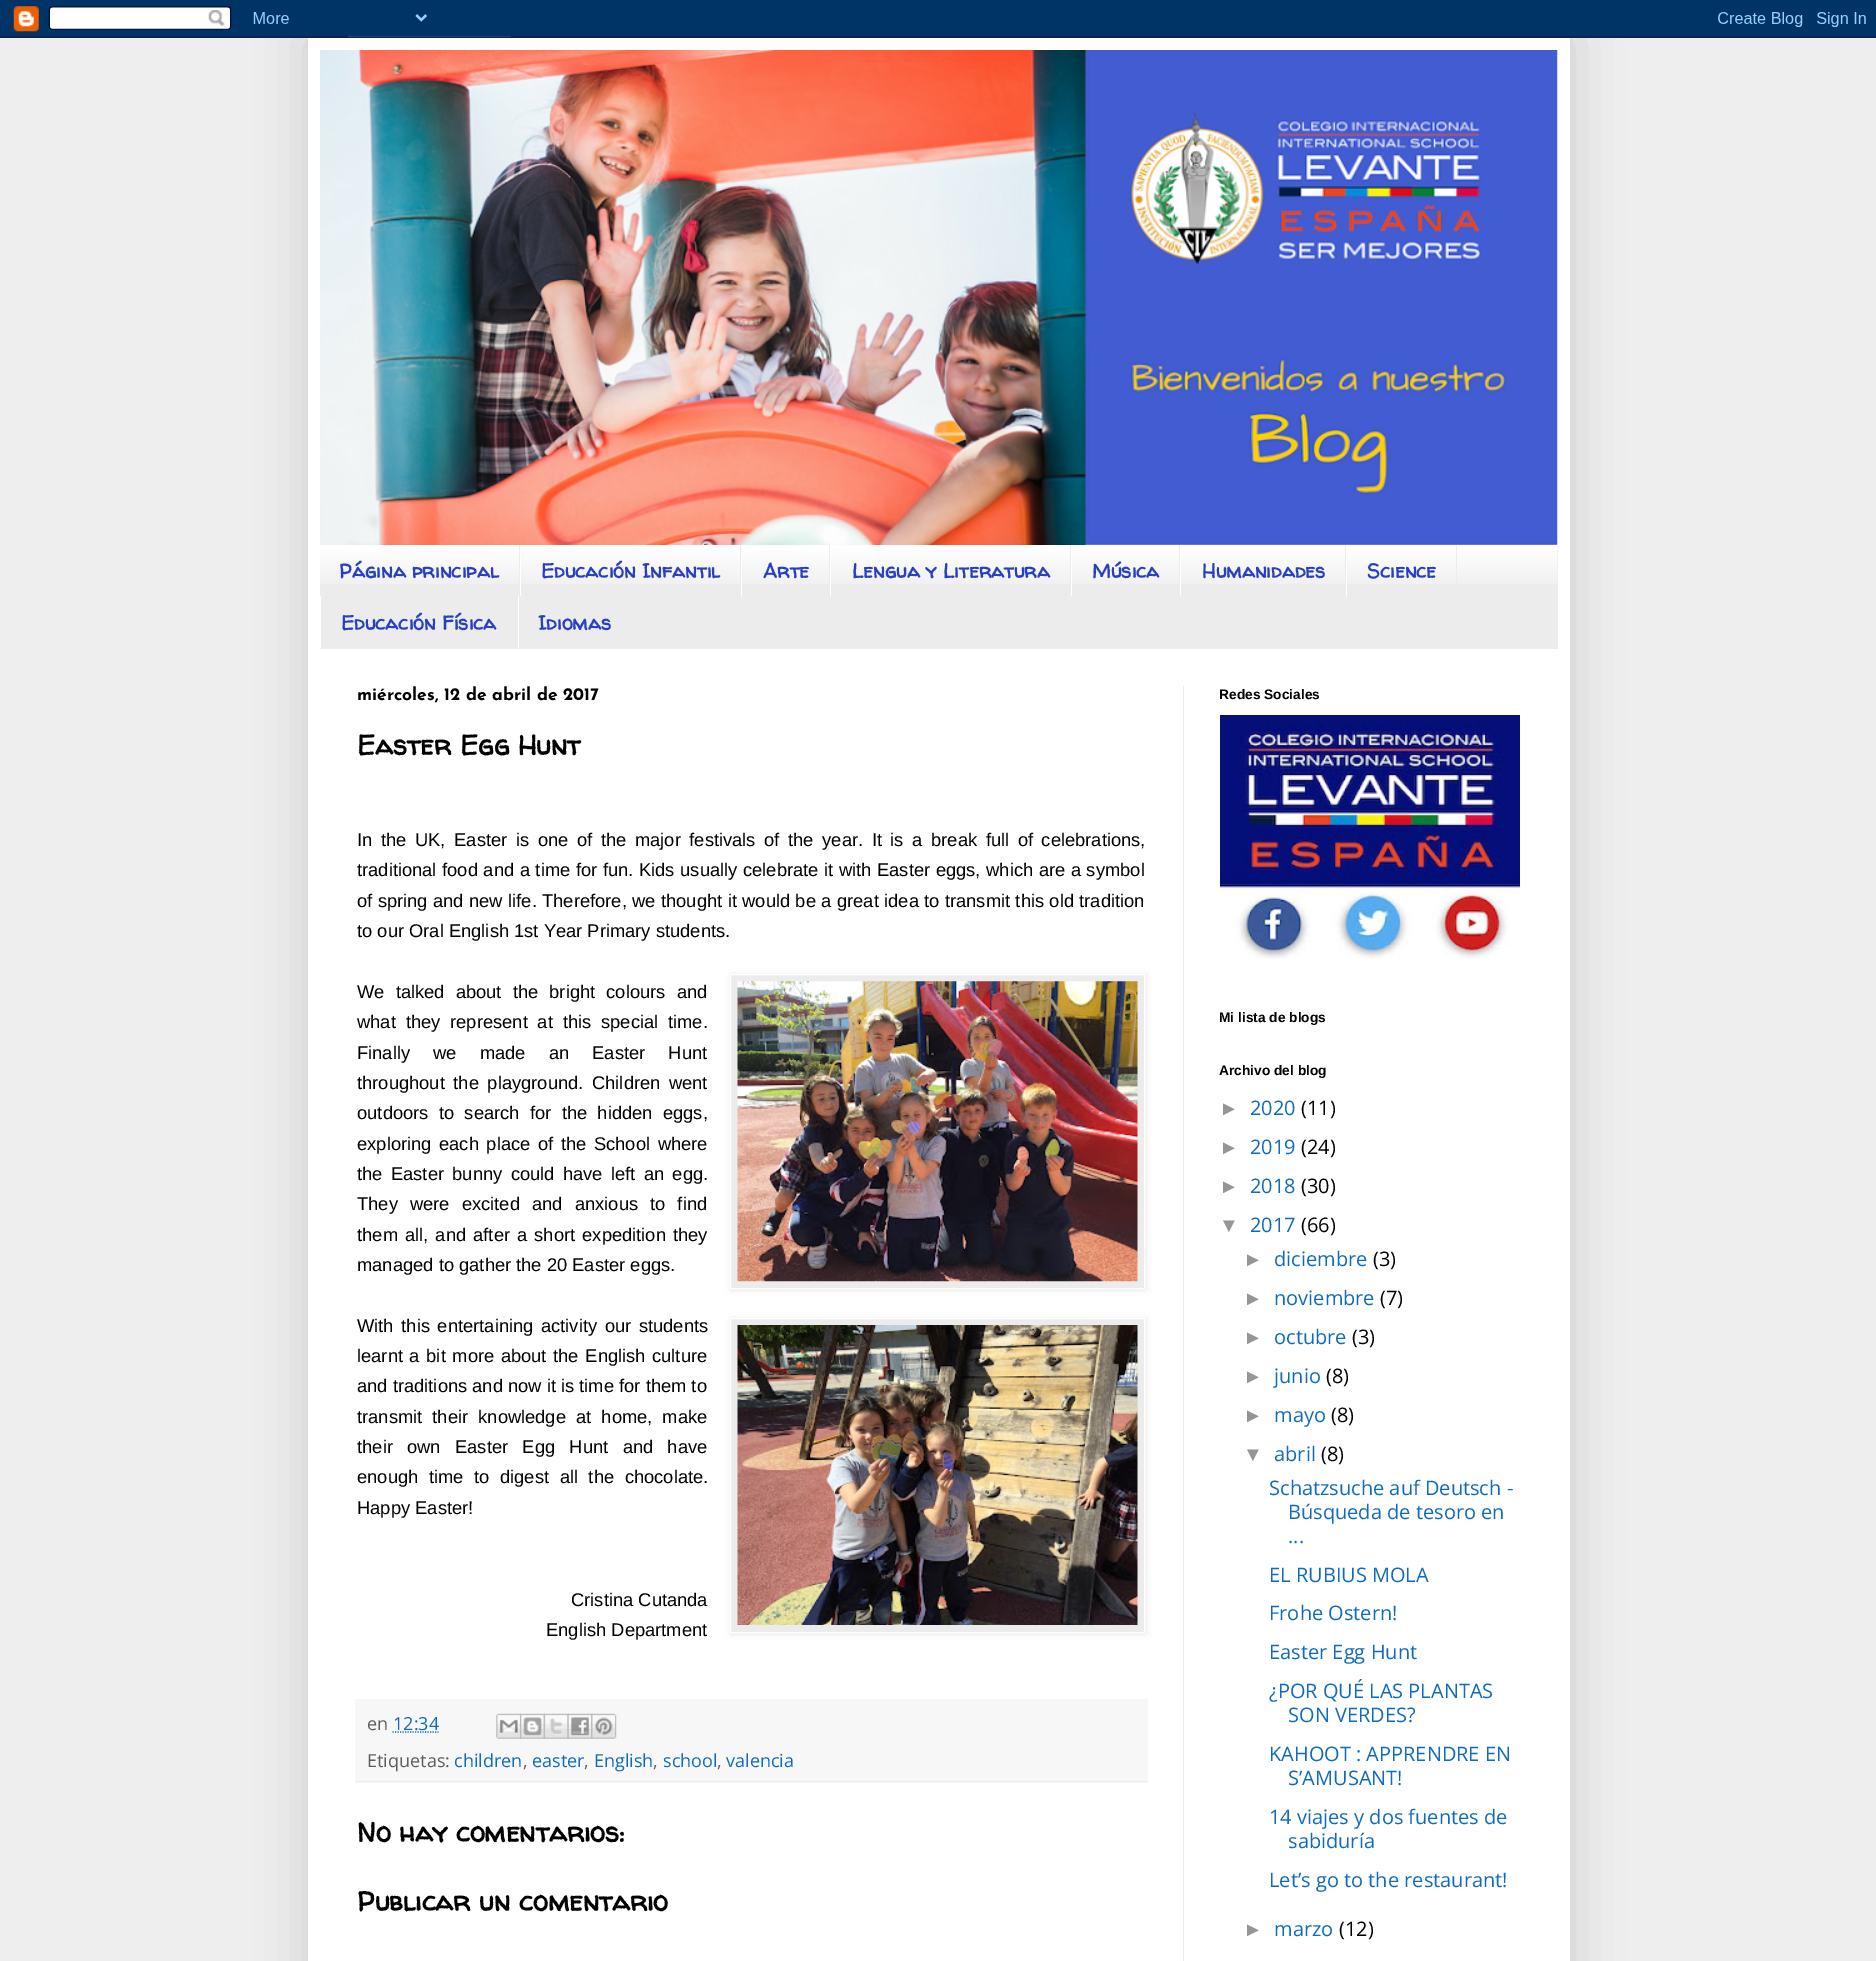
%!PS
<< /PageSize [1876 1961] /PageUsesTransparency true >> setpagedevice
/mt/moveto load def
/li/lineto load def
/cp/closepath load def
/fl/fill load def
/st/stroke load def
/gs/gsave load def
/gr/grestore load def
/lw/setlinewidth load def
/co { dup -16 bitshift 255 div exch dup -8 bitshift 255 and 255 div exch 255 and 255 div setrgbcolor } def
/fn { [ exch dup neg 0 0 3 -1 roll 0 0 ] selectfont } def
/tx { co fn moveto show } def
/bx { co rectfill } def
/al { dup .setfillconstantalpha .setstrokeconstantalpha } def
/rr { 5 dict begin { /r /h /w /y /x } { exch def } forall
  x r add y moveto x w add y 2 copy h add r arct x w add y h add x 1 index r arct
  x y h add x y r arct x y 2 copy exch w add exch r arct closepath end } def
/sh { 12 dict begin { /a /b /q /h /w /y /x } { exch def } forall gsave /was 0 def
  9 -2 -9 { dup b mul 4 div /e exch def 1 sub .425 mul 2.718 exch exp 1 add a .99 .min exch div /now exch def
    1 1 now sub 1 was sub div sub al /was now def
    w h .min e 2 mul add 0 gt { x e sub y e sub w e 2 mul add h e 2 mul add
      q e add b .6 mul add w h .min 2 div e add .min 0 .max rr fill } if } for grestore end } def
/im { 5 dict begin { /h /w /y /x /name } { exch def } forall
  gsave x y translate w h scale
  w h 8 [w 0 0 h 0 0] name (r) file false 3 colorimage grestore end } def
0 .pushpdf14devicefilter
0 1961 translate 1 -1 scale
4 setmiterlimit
0 0 1876 1961 16#EEEEEE bx
16#000000 co
308 38 1262 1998 0 25 .15 sh
(media/1.raw) 0 0 1876 38 im
308 38 1262 1923 16#FFFFFF bx
(media/2.raw) 320 50 1238 495 im
320 545 1238 104 16#ECECEC bx
(media/3.raw) 320 545 1238 39 im
519 545 1 39 16#ECECEC bx
740 545 1 39 16#ECECEC bx
520 545 1 51 16#FFFFFF bx
829 545 1 39 16#ECECEC bx
741 545 1 51 16#FFFFFF bx
1070 545 1 39 16#ECECEC bx
830 545 1 51 16#FFFFFF bx
1179 545 1 39 16#ECECEC bx
1071 545 1 51 16#FFFFFF bx
1345 545 1 39 16#ECECEC bx
1180 545 1 51 16#FFFFFF bx
1456 545 1 39 16#ECECEC bx
1346 545 1 51 16#FFFFFF bx
320 596 1 52 16#FFFFFF bx
518 596 1 52 16#FFFFFF bx
16#000000 co
731 975 415 315 0 3 .1 sh
16#ECECEC co
730.5 974.5 mt 1144.5 974.5 li 1144.5 1288.5 li 730.5 1288.5 li cp gs fl gr
16#FFFFFF co
st
(media/4.raw) 737 981 401 301 im
16#000000 co
731 1319 415 315 0 3 .1 sh
16#ECECEC co
730.5 1318.5 mt 1144.5 1318.5 li 1144.5 1632.5 li 730.5 1632.5 li cp gs fl gr
16#FFFFFF co
st
(media/5.raw) 737 1325 401 300 im
355 1699 793 84 16#F7F7F7 bx
355 1781 793 1 16#ECECEC bx
16#0F6BBE co
1.2 lw
[1.25 1.25] 0 setdash
392.5 1732 mt 438.5 1732 li st
(media/6.raw) 496 1713 26 26 im
(media/7.raw) 520 1713 25 26 im
(media/8.raw) 543 1713 26 26 im
(media/9.raw) 567 1713 26 26 im
(media/10.raw) 591 1713 26 26 im
(media/11.raw) 1220 715 300 244 im
1183 686 1 1275 16#ECECEC bx
(Página principal) 339 578 /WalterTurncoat-Bold 20 16#283FC1 tx
(Educación Infantil) 541 578 /WalterTurncoat-Bold 20 16#283FC1 tx
(Arte) 763 578 /WalterTurncoat-Bold 20 16#283FC1 tx
(Lengua y Literatura) 852 578 /WalterTurncoat-Bold 20 16#283FC1 tx
(Música) 1092 578 /WalterTurncoat-Bold 20 16#283FC1 tx
(Humanidades) 1202 578 /WalterTurncoat-Bold 20 16#283FC1 tx
(Science) 1367 578 /WalterTurncoat-Bold 20 16#283FC1 tx
(Educación Física) 341 630 /WalterTurncoat-Bold 20 16#283FC1 tx
(Idiomas) 538 630 /WalterTurncoat-Bold 20 16#283FC1 tx
(miércoles, 12 de abril de 2017) 357 700 /JosefinSans-Thin 17.5 16#000000 tx
(Easter Egg Hunt) 357 755 /WalterTurncoat-Bold 27.5 16#000000 tx
/LiberationSans-Regular 18.35 fn
357 846 mt 3.5 0 32 (In the UK, Easter is one of the major festivals of the year. It is a break full of celebrations,) widthshow
357 876 mt .5 0 32 (traditional food and a time for fun. Kids usually celebrate it with Easter eggs, which are a symbol) widthshow
357 907 mt .3 0 32 (of spring and new life. Therefore, we thought it would be a great idea to transmit this old tradition) widthshow
(to our Oral English 1st Year Primary students.) 357 937 /LiberationSans-Regular 18.35 16#000000 tx
357 998 mt 6 0 32 (We talked about the bright colours and) widthshow
357 1028 mt 4.75 0 32 (what they represent at this special time.) widthshow
357 1059 mt 18 0 32 (Finally we made an Easter Hunt) widthshow
357 1089 mt 3.5 0 32 (throughout the playground. Children went) widthshow
357 1119 mt 5.25 0 32 (outdoors to search for the hidden eggs,) widthshow
357 1150 mt 2.5 0 32 (exploring each place of the School where) widthshow
357 1180 mt 3.25 0 32 (the Easter bunny could have left an egg.) widthshow
357 1210 mt 7 0 32 (They were excited and anxious to find) widthshow
357 1241 mt 2 0 32 (them all, and after a short expedition they) widthshow
(managed to gather the 20 Easter eggs.) 357 1271 /LiberationSans-Regular 18.35 16#000000 tx
357 1332 mt 2.5 0 32 (With this entertaining activity our students) widthshow
357 1362 mt 1.5 0 32 (learnt a bit more about the English culture) widthshow
(and traditions and now it is time for them to) 357 1392 /LiberationSans-Regular 18.35 16#000000 tx
357 1423 mt 5 0 32 (transmit their knowledge at home, make) widthshow
357 1453 mt 9.25 0 32 (their own Easter Egg Hunt and have) widthshow
357 1483 mt 5.5 0 32 (enough time to digest all the chocolate.) widthshow
(Happy Easter!) 357 1514 /LiberationSans-Regular 18.35 16#000000 tx
(Cristina Cutanda) 571 1606 /LiberationSans-Regular 18.35 16#000000 tx
(English Department) 546 1636 /LiberationSans-Regular 18.35 16#000000 tx
(en) 367 1730 /OpenSans-Regular 18 16#5D5D5D tx
(12:34) 393 1730 /OpenSans-Regular 18 16#0F6BBE tx
(Etiquetas:) 367 1767 /OpenSans-Regular 18 16#5D5D5D tx
(children) 454 1767 /OpenSans-Regular 18 16#0F6BBE tx
(,) 523 1767 /OpenSans-Regular 18 16#5D5D5D tx
(easter) 532 1767 /OpenSans-Regular 18 16#0F6BBE tx
(,) 584 1767 /OpenSans-Regular 18 16#5D5D5D tx
(English) 594 1767 /OpenSans-Regular 18 16#0F6BBE tx
(,) 653 1767 /OpenSans-Regular 18 16#5D5D5D tx
(school) 663 1767 /OpenSans-Regular 18 16#0F6BBE tx
(,) 717 1767 /OpenSans-Regular 18 16#5D5D5D tx
(valencia) 726 1767 /OpenSans-Regular 18 16#0F6BBE tx
(No hay comentarios:) 357 1842 /WalterTurncoat-Bold 27.5 16#000000 tx
(Publicar un comentario) 357 1911 /WalterTurncoat-Bold 27.5 16#000000 tx
(Redes Sociales) 1219 699 /LiberationSans-Bold 13.75 16#000000 tx
(Mi lista de blogs) 1219 1022 /LiberationSans-Bold 13.75 16#000000 tx
(Archivo del blog) 1219 1075 /LiberationSans-Bold 13.75 16#000000 tx
(►) 1219 1115 /LiberationSans-Regular 20 16#959595 tx
(2020) 1250 1115 /OpenSans-Regular 20 16#0F6BBE tx
(\(11\)) 1301 1115 /OpenSans-Regular 20 16#000000 tx
(►) 1219 1154 /LiberationSans-Regular 20 16#959595 tx
(2019) 1250 1154 /OpenSans-Regular 20 16#0F6BBE tx
(\(24\)) 1301 1154 /OpenSans-Regular 20 16#000000 tx
(►) 1219 1193 /LiberationSans-Regular 20 16#959595 tx
(2018) 1250 1193 /OpenSans-Regular 20 16#0F6BBE tx
(\(30\)) 1301 1193 /OpenSans-Regular 20 16#000000 tx
(▼) 1219 1232 /LiberationSans-Regular 20 16#959595 tx
(2017) 1250 1232 /OpenSans-Regular 20 16#0F6BBE tx
(\(66\)) 1301 1232 /OpenSans-Regular 20 16#000000 tx
(►) 1243 1266 /LiberationSans-Regular 20 16#959595 tx
(diciembre) 1274 1266 /OpenSans-Regular 20 16#0F6BBE tx
(\(3\)) 1373 1266 /OpenSans-Regular 20 16#000000 tx
(►) 1243 1305 /LiberationSans-Regular 20 16#959595 tx
(noviembre) 1274 1305 /OpenSans-Regular 20 16#0F6BBE tx
(\(7\)) 1380 1305 /OpenSans-Regular 20 16#000000 tx
(►) 1243 1344 /LiberationSans-Regular 20 16#959595 tx
(octubre) 1274 1344 /OpenSans-Regular 20 16#0F6BBE tx
(\(3\)) 1352 1344 /OpenSans-Regular 20 16#000000 tx
(►) 1243 1383 /LiberationSans-Regular 20 16#959595 tx
(junio) 1274 1383 /OpenSans-Regular 20 16#0F6BBE tx
(\(8\)) 1326 1383 /OpenSans-Regular 20 16#000000 tx
(►) 1243 1422 /LiberationSans-Regular 20 16#959595 tx
(mayo) 1274 1422 /OpenSans-Regular 20 16#0F6BBE tx
(\(8\)) 1331 1422 /OpenSans-Regular 20 16#000000 tx
(▼) 1243 1461 /LiberationSans-Regular 20 16#959595 tx
(abril) 1274 1461 /OpenSans-Regular 20 16#0F6BBE tx
(\(8\)) 1321 1461 /OpenSans-Regular 20 16#000000 tx
(Schatzsuche auf Deutsch -) 1269 1495 /OpenSans-Regular 20 16#0F6BBE tx
(Búsqueda de tesoro en) 1288 1519 /OpenSans-Regular 20 16#0F6BBE tx
(...) 1288 1543 /OpenSans-Regular 20 16#0F6BBE tx
(EL RUBIUS MOLA) 1269 1582 /OpenSans-Regular 20 16#0F6BBE tx
(Frohe Ostern!) 1269 1620 /OpenSans-Regular 20 16#0F6BBE tx
(Easter Egg Hunt) 1269 1659 /OpenSans-Regular 20 16#0F6BBE tx
(¿POR QUÉ LAS PLANTAS) 1269 1698 /OpenSans-Regular 20 16#0F6BBE tx
(SON VERDES?) 1288 1722 /OpenSans-Regular 20 16#0F6BBE tx
(KAHOOT : APPRENDRE EN) 1269 1761 /OpenSans-Regular 20 16#0F6BBE tx
(S’AMUSANT!) 1288 1785 /OpenSans-Regular 20 16#0F6BBE tx
(14 viajes y dos fuentes de) 1269 1824 /OpenSans-Regular 20 16#0F6BBE tx
(sabiduría) 1288 1848 /OpenSans-Regular 20 16#0F6BBE tx
(Let’s go to the restaurant!) 1269 1887 /OpenSans-Regular 20 16#0F6BBE tx
(►) 1243 1936 /LiberationSans-Regular 20 16#959595 tx
(marzo) 1274 1936 /OpenSans-Regular 20 16#0F6BBE tx
(\(12\)) 1339 1936 /OpenSans-Regular 20 16#000000 tx
.poppdf14devicefilter showpage
